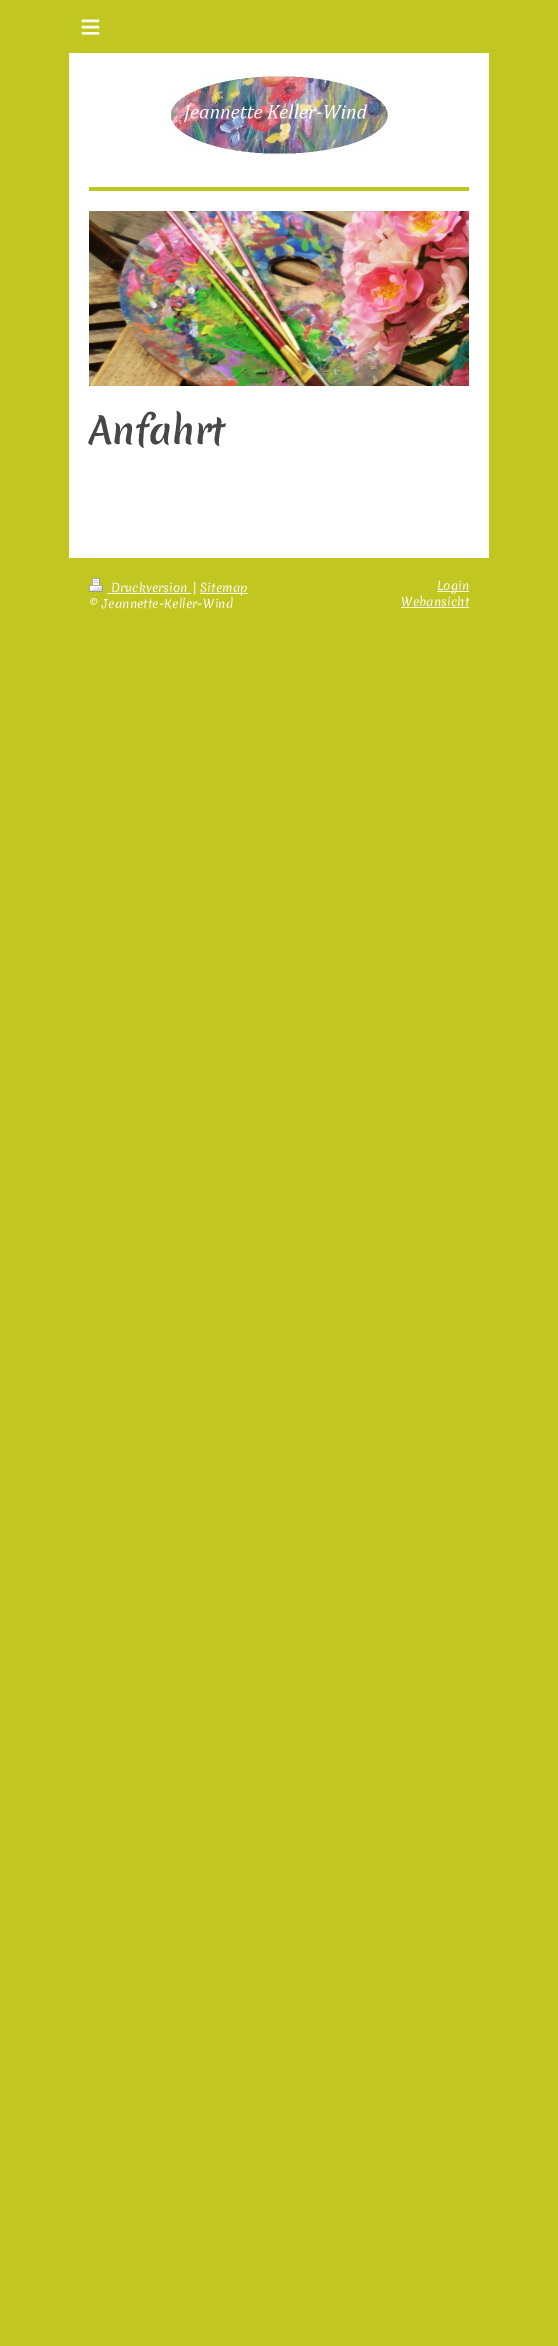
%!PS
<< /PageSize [558 2346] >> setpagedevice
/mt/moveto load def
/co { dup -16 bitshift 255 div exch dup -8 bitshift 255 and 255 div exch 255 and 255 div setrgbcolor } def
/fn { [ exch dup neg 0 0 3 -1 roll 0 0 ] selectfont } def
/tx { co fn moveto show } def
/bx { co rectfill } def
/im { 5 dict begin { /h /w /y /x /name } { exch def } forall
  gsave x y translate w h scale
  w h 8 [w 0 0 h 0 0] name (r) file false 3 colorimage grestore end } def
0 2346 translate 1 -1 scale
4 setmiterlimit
0 0 558 2346 16#C1C720 bx
69 53 420 505 16#FFFFFF bx
(media/1.raw) 168 73 223 84 im
89 187 380 4 16#C1C720 bx
(media/2.raw) 89 211 380 175 im
(media/3.raw) 89 578 14 14 im
107 593 84 1 16#F9F9E9 bx
200 593 48 1 16#F9F9E9 bx
437 591 32 1 16#F9F9E9 bx
401 607 68 1 16#F9F9E9 bx
/LiberationSans-Regular 36 fn
80 39 mt 10 0 (≡) ashow
(Anfahrt) 89 444 /Merienda-Bold 36 16#474747 tx
(Druckversion |) 111 592 /Merienda-Regular 11.75 16#F9F9E9 tx
(Sitemap) 200 592 /Merienda-Regular 11.75 16#F9F9E9 tx
(© Jeannette-Keller-Wind) 89 608 /Merienda-Regular 11.75 16#F9F9E9 tx
(Login) 437 590 /Merienda-Regular 11.75 16#F9F9E9 tx
(Webansicht) 401 606 /Merienda-Regular 11.75 16#F9F9E9 tx
showpage
